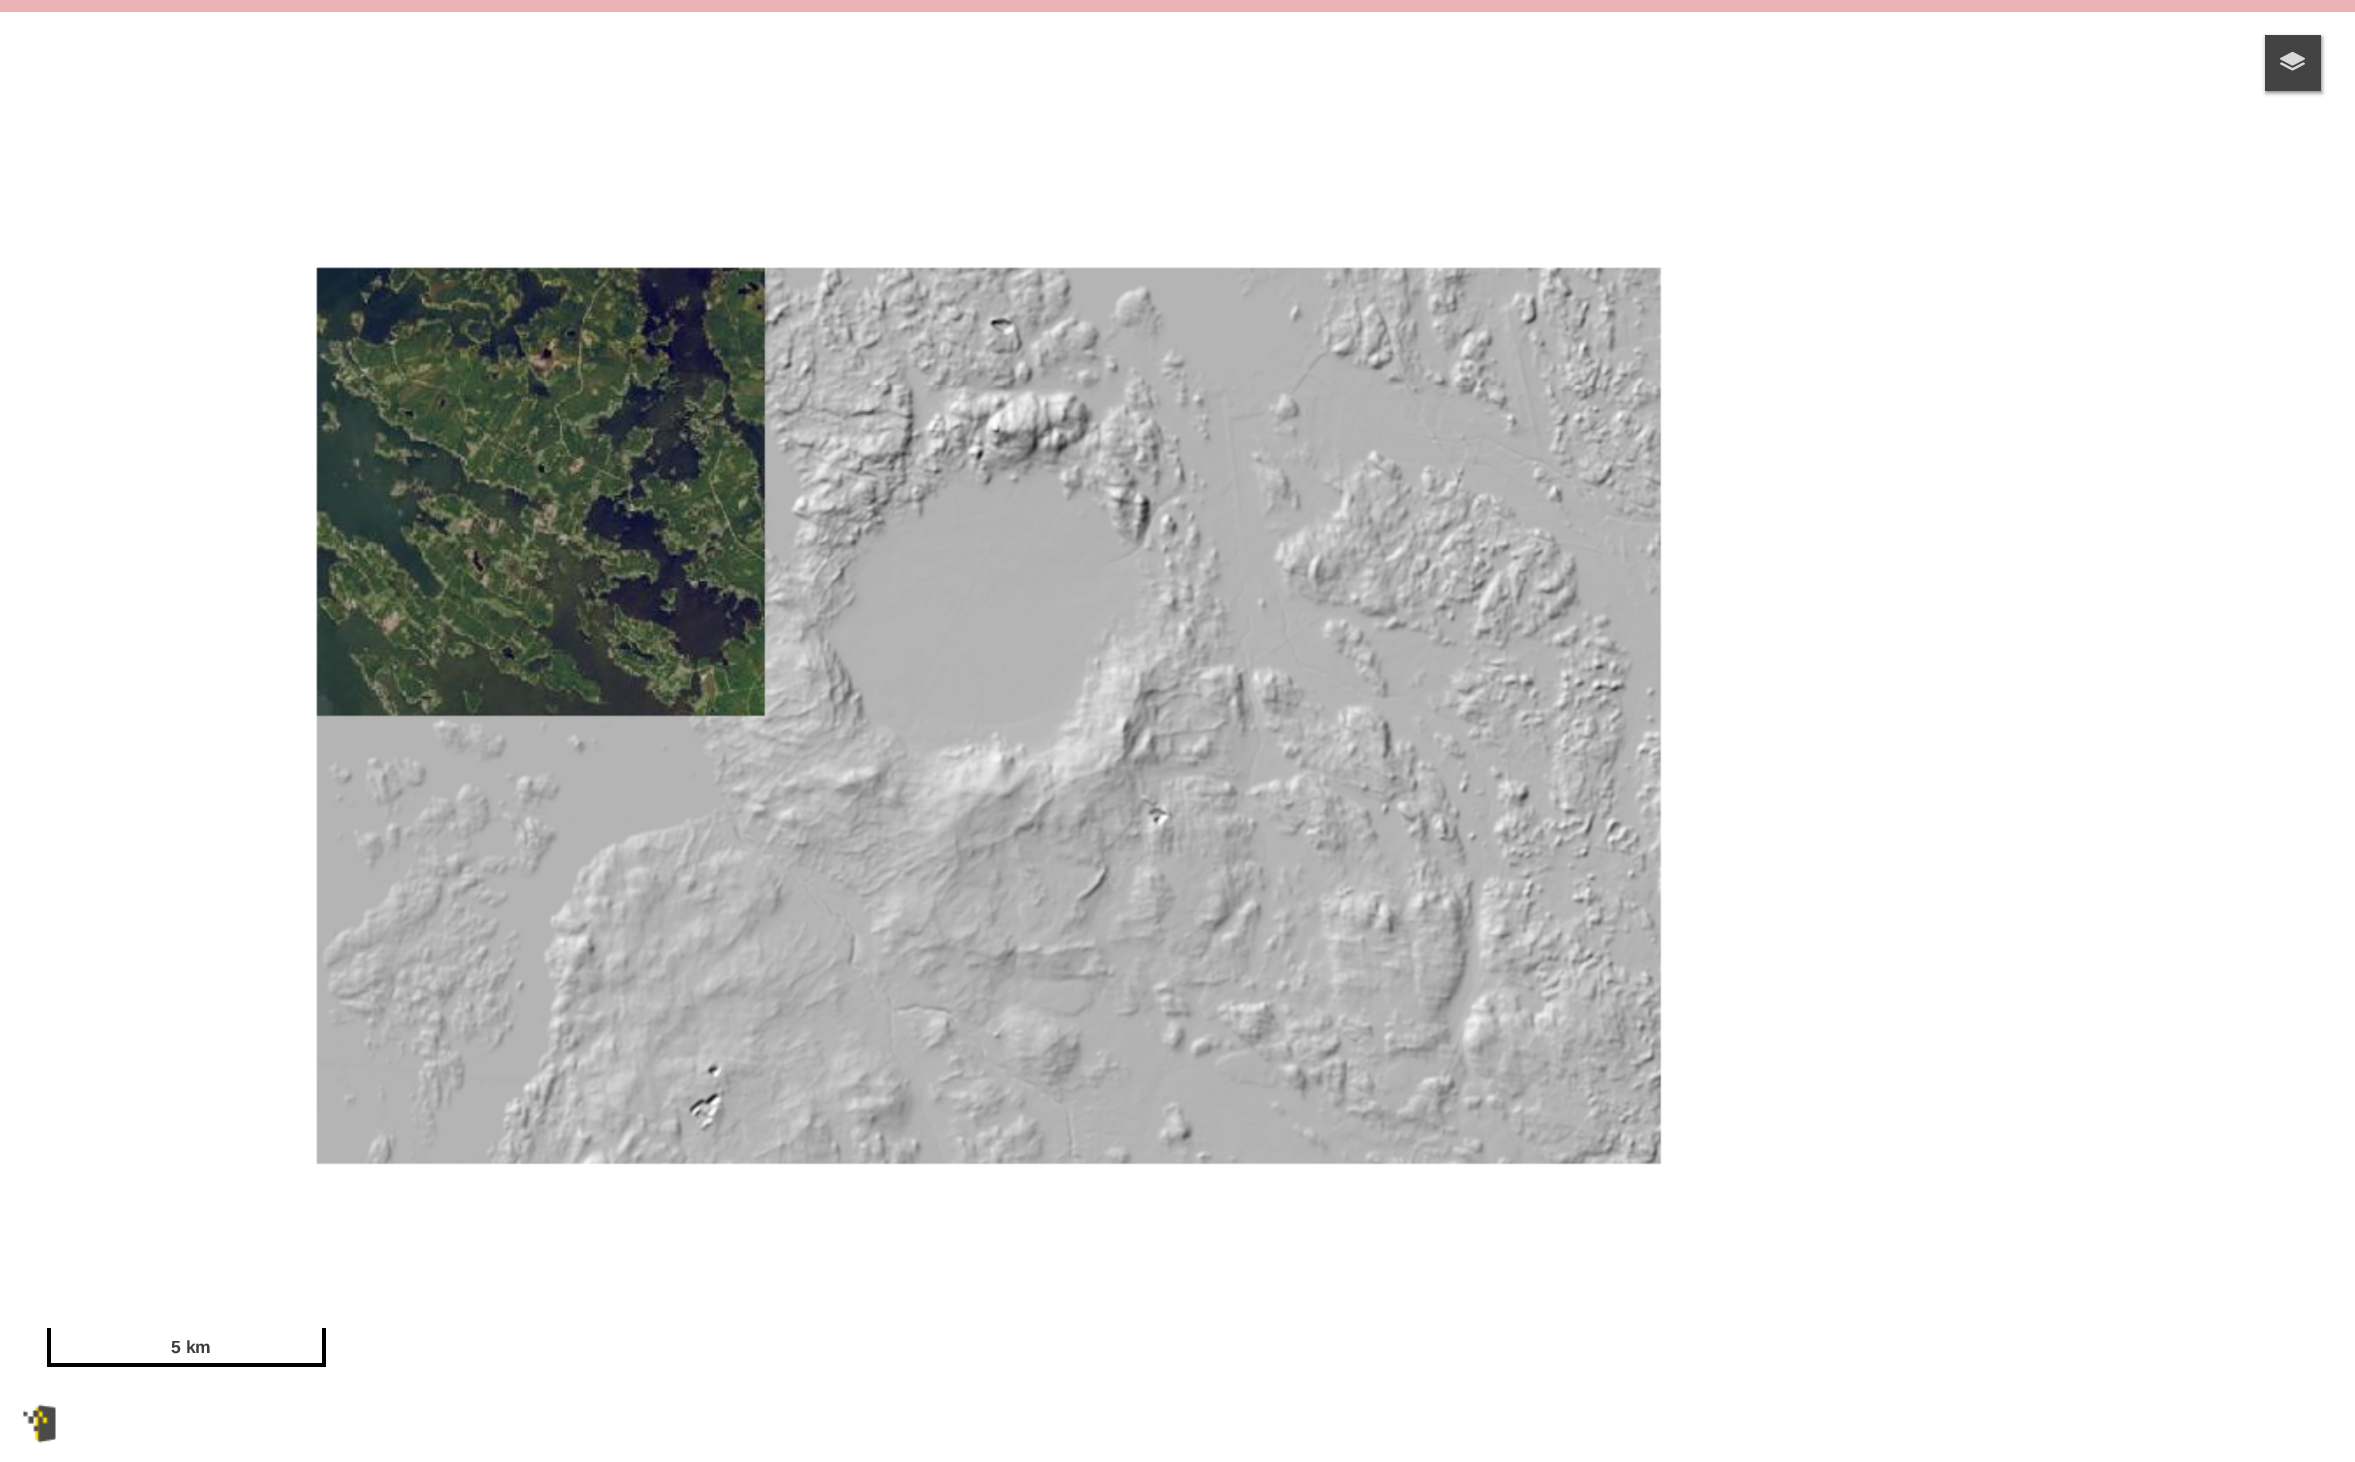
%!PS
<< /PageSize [2355 1462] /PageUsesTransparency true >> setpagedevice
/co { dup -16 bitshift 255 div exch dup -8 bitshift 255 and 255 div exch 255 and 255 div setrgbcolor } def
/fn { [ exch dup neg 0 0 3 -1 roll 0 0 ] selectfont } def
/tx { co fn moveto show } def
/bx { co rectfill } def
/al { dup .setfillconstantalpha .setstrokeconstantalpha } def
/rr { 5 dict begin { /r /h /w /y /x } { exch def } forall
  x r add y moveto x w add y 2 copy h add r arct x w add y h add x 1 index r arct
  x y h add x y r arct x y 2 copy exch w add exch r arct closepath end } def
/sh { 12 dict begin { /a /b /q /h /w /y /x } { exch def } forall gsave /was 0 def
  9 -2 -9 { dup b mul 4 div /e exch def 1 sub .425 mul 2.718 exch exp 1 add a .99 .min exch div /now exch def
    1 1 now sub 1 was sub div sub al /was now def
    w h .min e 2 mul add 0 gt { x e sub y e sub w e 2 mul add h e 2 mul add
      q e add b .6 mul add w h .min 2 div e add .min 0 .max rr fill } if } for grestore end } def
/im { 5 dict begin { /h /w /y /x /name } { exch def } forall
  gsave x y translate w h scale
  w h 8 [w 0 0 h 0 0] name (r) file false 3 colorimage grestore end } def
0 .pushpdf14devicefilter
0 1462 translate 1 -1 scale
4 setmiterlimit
0 0 2355 1462 16#FFFFFF bx
0 0 2355 12 16#EBB3B5 bx
16#333333 co
2266 37 56 56 0 2 .6 sh
2265 35 56 56 16#434343 bx
(media/1.raw) 2280 51 25 20 im
(media/2.raw) 316 267 1346 898 im
324 1328 2 39 16#000000 bx
47 1365 279 2 16#000000 bx
47 1328 2 39 16#000000 bx
322 1328 2 37 16#000000 bx
49 1363 275 2 16#000000 bx
49 1328 2 37 16#000000 bx
(media/3.raw) 23 1404 33 39 im
(5 km) 171 1353 /LiberationSans-Bold 17.5 16#3C3C3C tx
.poppdf14devicefilter showpage
